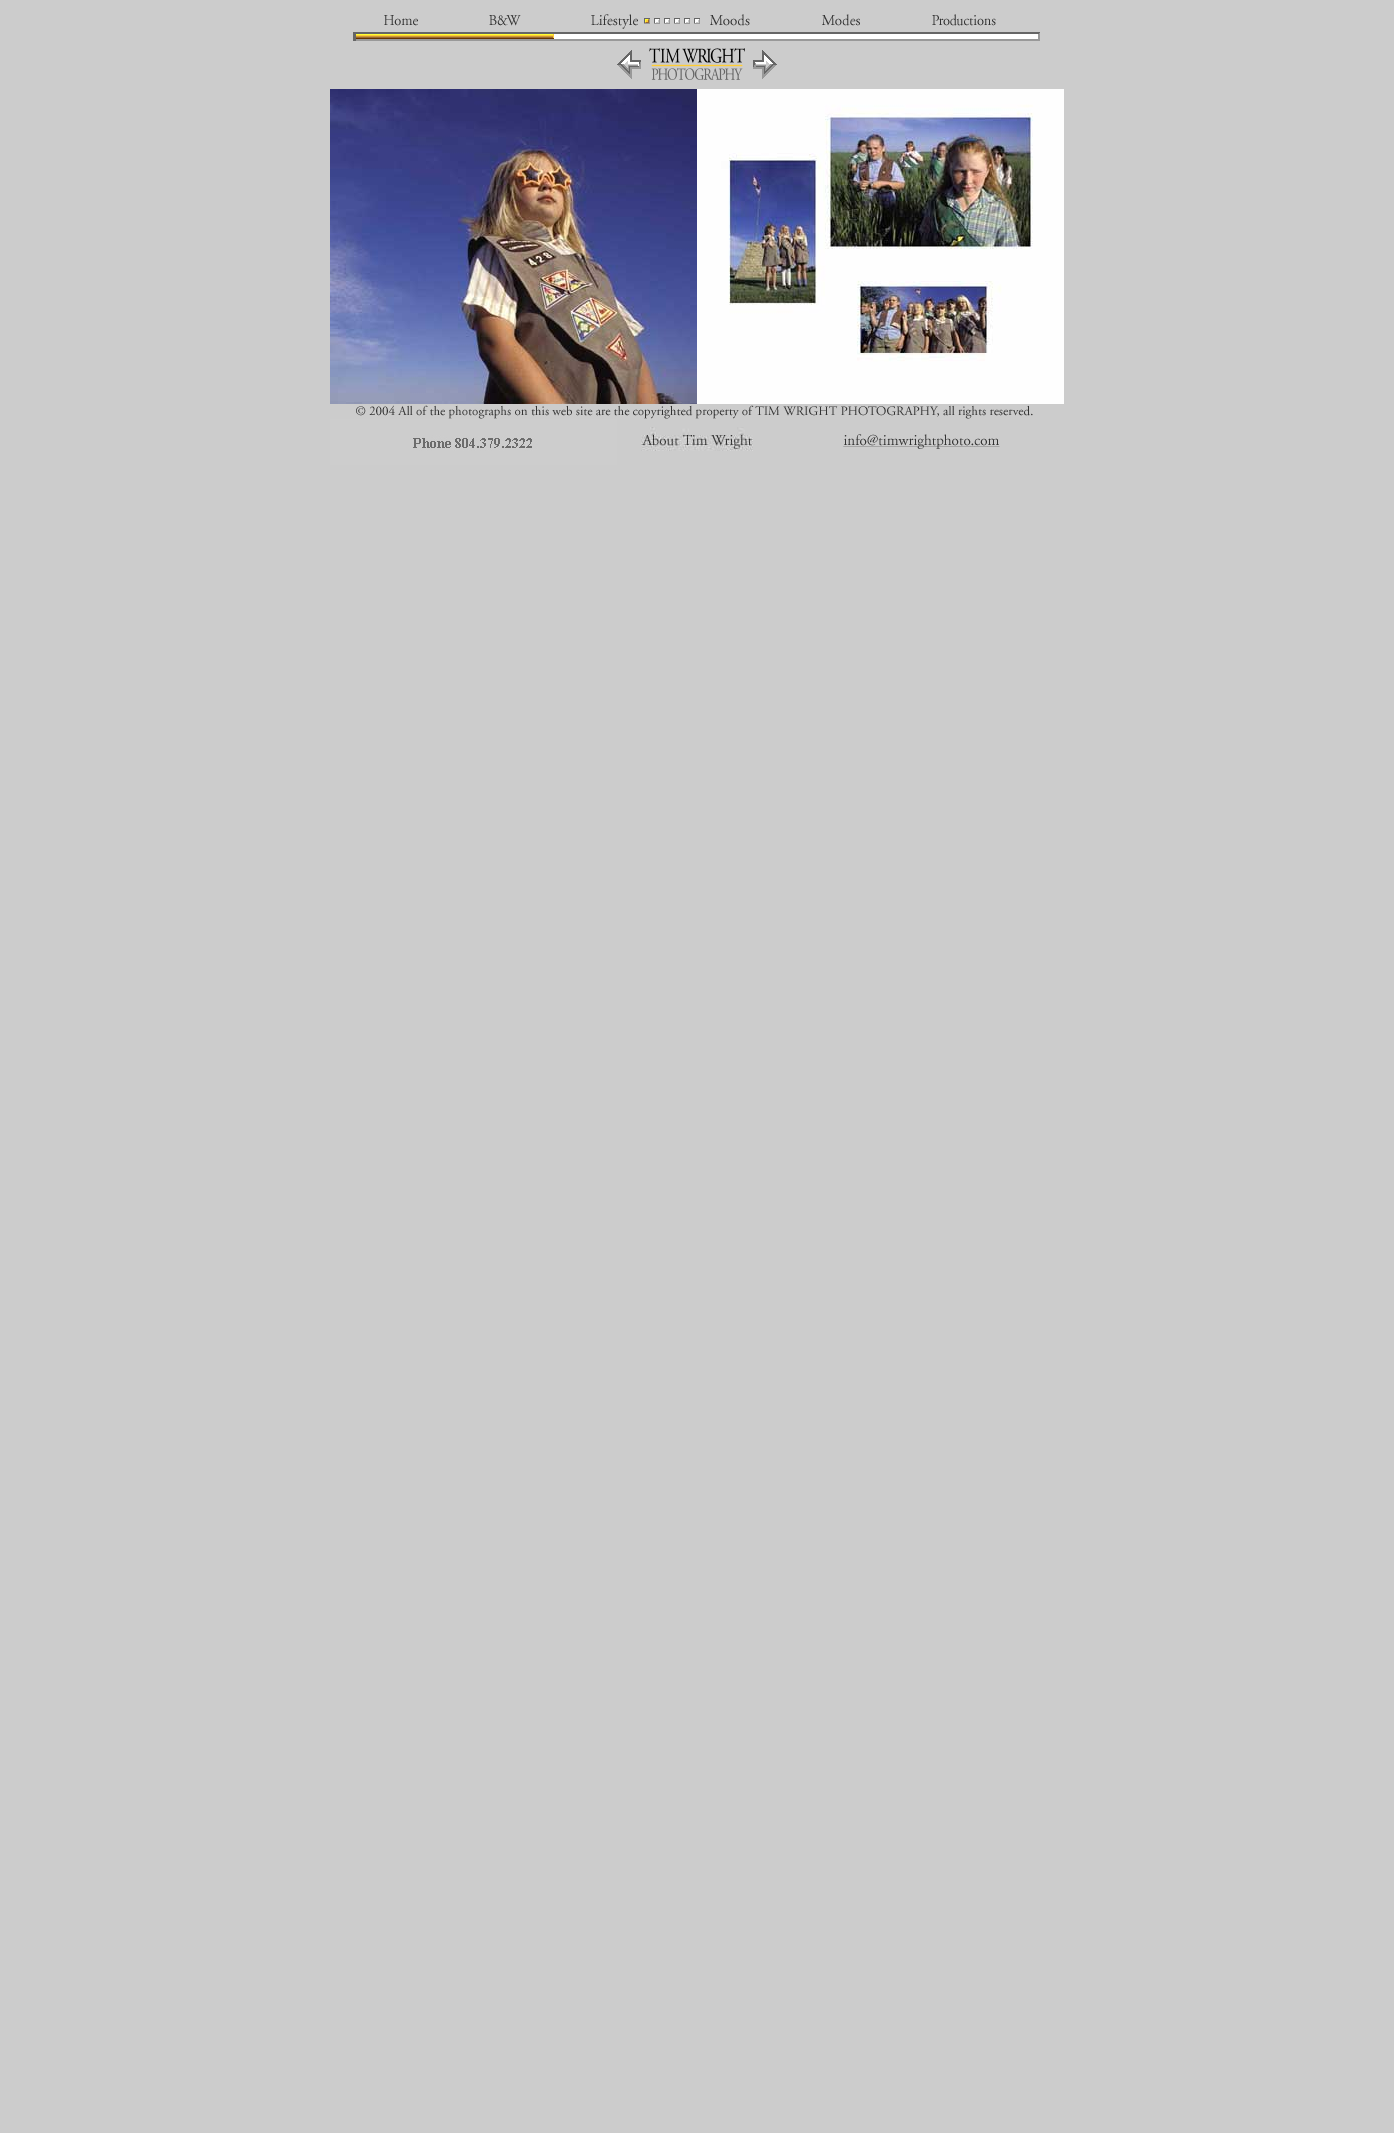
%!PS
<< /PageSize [1394 2133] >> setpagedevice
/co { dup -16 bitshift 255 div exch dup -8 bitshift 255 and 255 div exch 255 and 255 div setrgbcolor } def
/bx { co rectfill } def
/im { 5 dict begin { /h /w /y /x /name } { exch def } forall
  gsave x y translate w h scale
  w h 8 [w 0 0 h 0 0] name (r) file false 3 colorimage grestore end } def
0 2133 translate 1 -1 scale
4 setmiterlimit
0 0 1394 2133 16#CCCCCC bx
(media/1.raw) 384 15 34 11 im
(media/2.raw) 489 15 32 11 im
(media/3.raw) 591 14 47 15 im
(media/4.raw) 644 18 6 6 im
(media/5.raw) 654 18 6 6 im
(media/5.raw) 664 18 6 6 im
(media/5.raw) 674 18 6 6 im
(media/5.raw) 684 18 6 6 im
(media/5.raw) 694 18 6 6 im
(media/6.raw) 710 14 40 12 im
(media/7.raw) 822 14 38 12 im
(media/8.raw) 932 14 64 12 im
353 32 3 9 16#666666 bx
(media/9.raw) 356 32 22 9 im
(media/9.raw) 378 32 22 9 im
(media/9.raw) 400 32 22 9 im
(media/9.raw) 422 32 22 9 im
(media/9.raw) 444 32 22 9 im
(media/9.raw) 466 32 22 9 im
(media/9.raw) 488 32 22 9 im
(media/9.raw) 510 32 22 9 im
(media/10.raw) 532 32 22 9 im
(media/11.raw) 554 32 22 9 im
(media/11.raw) 576 32 22 9 im
(media/11.raw) 598 32 22 9 im
(media/11.raw) 620 32 22 9 im
(media/11.raw) 642 32 22 9 im
(media/11.raw) 664 32 22 9 im
(media/11.raw) 686 32 22 9 im
(media/11.raw) 708 32 22 9 im
(media/11.raw) 730 32 22 9 im
(media/11.raw) 752 32 22 9 im
(media/11.raw) 774 32 22 9 im
(media/11.raw) 796 32 22 9 im
(media/11.raw) 818 32 22 9 im
(media/11.raw) 840 32 22 9 im
(media/11.raw) 862 32 22 9 im
(media/11.raw) 884 32 22 9 im
(media/11.raw) 906 32 22 9 im
(media/11.raw) 928 32 22 9 im
(media/11.raw) 950 32 22 9 im
(media/11.raw) 972 32 22 9 im
(media/11.raw) 994 32 22 9 im
(media/11.raw) 1016 32 22 9 im
(media/12.raw) 1038 32 2 9 im
(media/13.raw) 617 50 24 29 im
(media/14.raw) 649 48 96 32 im
(media/15.raw) 753 50 24 29 im
(media/16.raw) 330 89 367 315 im
(media/17.raw) 697 89 367 315 im
(media/18.raw) 330 404 734 15 im
(media/19.raw) 330 419 287 46 im
(media/20.raw) 617 419 160 46 im
(media/21.raw) 777 419 287 46 im
showpage
